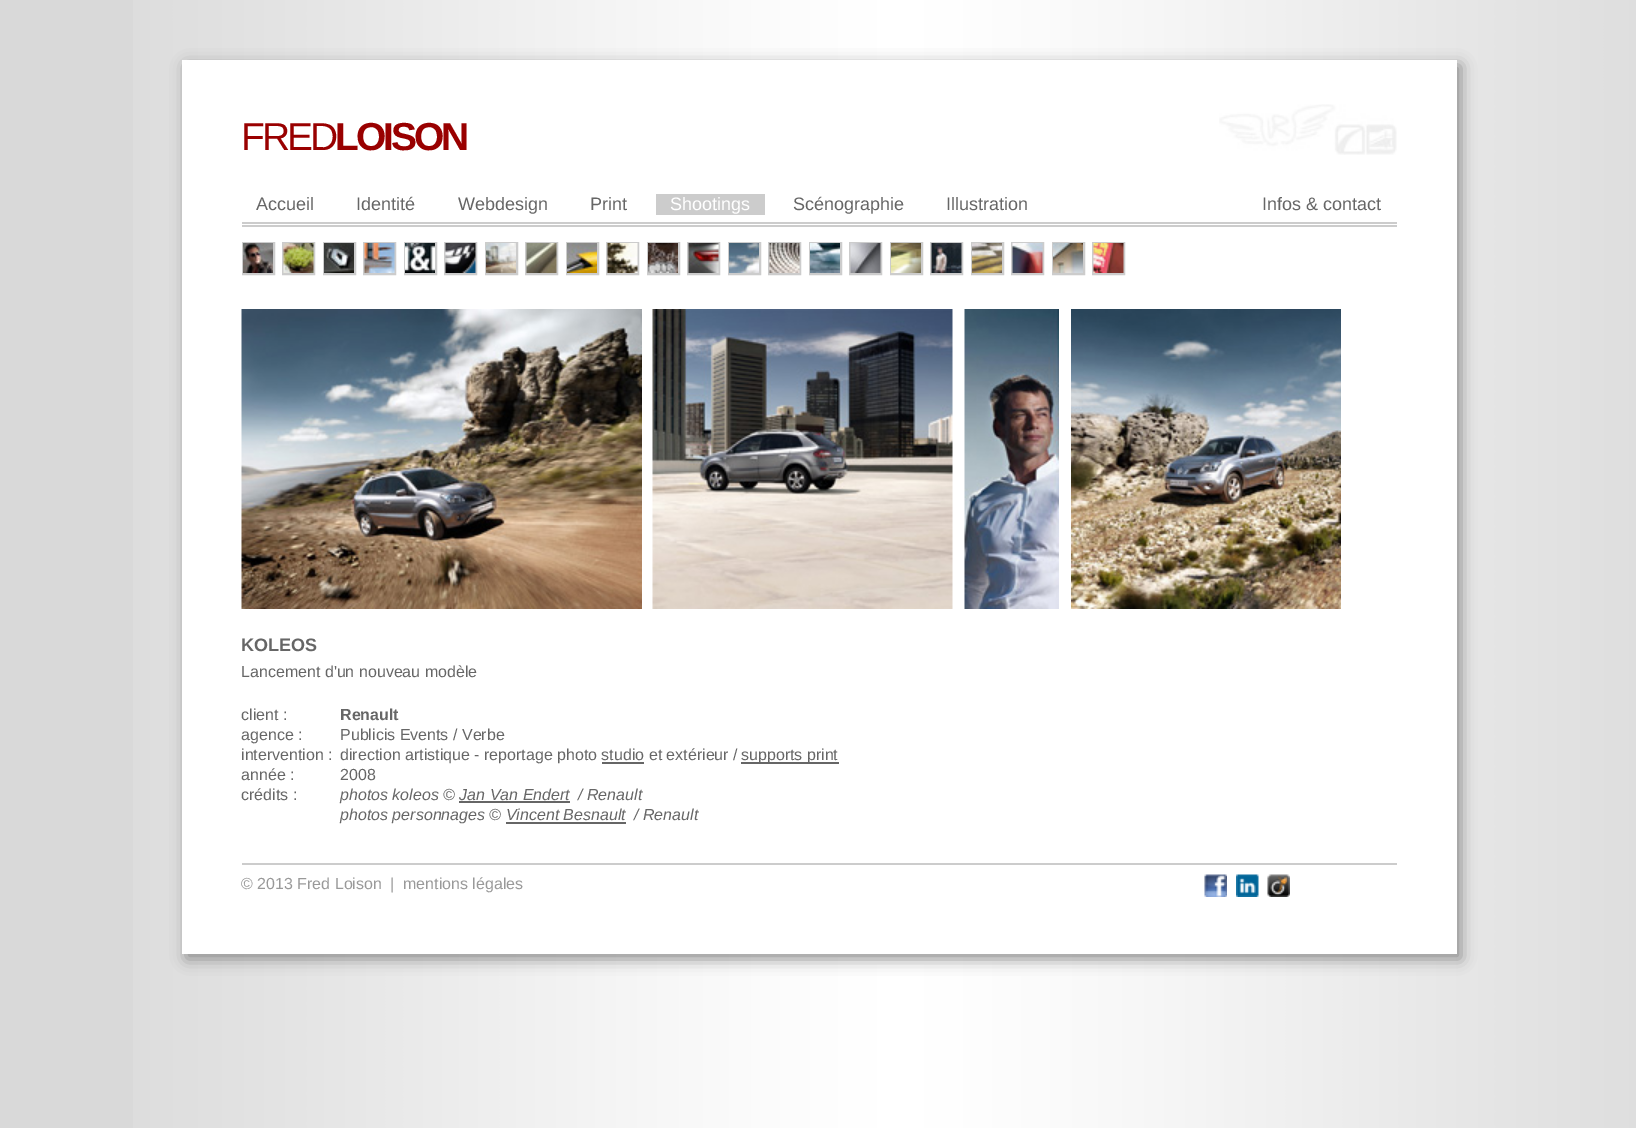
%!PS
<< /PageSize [1636 1128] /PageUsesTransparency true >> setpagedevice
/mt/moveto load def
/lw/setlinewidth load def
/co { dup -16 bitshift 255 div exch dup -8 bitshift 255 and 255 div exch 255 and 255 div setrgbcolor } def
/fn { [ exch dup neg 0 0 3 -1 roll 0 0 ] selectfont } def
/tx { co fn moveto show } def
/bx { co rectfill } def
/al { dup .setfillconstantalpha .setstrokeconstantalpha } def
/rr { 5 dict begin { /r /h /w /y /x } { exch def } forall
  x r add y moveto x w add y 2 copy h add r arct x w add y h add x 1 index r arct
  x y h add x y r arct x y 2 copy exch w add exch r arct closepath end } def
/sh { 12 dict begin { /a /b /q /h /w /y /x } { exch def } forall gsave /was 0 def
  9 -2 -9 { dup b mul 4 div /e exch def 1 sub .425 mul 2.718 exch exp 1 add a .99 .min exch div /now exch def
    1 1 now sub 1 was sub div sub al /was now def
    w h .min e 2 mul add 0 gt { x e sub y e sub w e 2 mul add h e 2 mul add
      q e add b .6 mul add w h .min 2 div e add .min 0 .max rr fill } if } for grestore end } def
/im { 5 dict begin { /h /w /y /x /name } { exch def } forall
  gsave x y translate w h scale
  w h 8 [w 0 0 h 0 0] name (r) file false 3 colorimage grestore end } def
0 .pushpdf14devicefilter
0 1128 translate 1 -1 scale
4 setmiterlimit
0 0 1636 1128 16#D9D9D9 bx
(media/1.raw) 133 0 1503 1128 im
16#8C8C8C co
186 65 1275 894 0 7.5 1 sh
182 60 1275 894 16#FFFFFF bx
(media/2.raw) 1219 104 178 51 im
242 222 1155 2 16#CCCCCC bx
242 225 1155 2 16#CCCCCC bx
656 194 109 21 16#CCCCCC bx
2 lw
243 243 31 31 rectstroke
(media/3.raw) 243 243 30 30 im
283 243 31 31 rectstroke
(media/4.raw) 283 243 31 30 im
324 243 31 31 rectstroke
(media/5.raw) 324 243 30 30 im
364 243 31 31 rectstroke
(media/6.raw) 364 243 31 30 im
405 243 31 31 rectstroke
(media/7.raw) 405 243 30 30 im
445 243 31 31 rectstroke
(media/8.raw) 445 243 31 30 im
486 243 31 31 rectstroke
(media/9.raw) 486 243 30 30 im
526 243 31 31 rectstroke
(media/10.raw) 526 243 31 30 im
567 243 31 31 rectstroke
(media/11.raw) 567 243 30 30 im
607 243 31 31 rectstroke
(media/12.raw) 607 243 31 30 im
648 243 31 31 rectstroke
(media/13.raw) 648 243 30 30 im
688 243 31 31 rectstroke
(media/14.raw) 688 243 31 30 im
729 243 31 31 rectstroke
(media/15.raw) 729 243 30 30 im
769 243 31 31 rectstroke
(media/16.raw) 769 243 31 30 im
810 243 31 31 rectstroke
(media/17.raw) 810 243 30 30 im
850 243 31 31 rectstroke
(media/18.raw) 850 243 31 30 im
891 243 31 31 rectstroke
(media/19.raw) 891 243 30 30 im
931 243 31 31 rectstroke
(media/20.raw) 931 243 31 30 im
972 243 31 31 rectstroke
(media/21.raw) 972 243 30 30 im
1012 243 31 31 rectstroke
(media/22.raw) 1012 243 31 30 im
1053 243 31 31 rectstroke
(media/23.raw) 1053 243 30 30 im
1093 243 31 31 rectstroke
(media/24.raw) 1093 243 31 30 im
(media/25.raw) 241 309 401 300 im
(media/26.raw) 652 309 301 300 im
(media/27.raw) 964 309 95 300 im
(media/28.raw) 1071 309 270 300 im
741 762 98 2 16#666666 bx
602 762 42 2 16#666666 bx
459 801 111 2 16#666666 bx
506 822 120 2 16#666666 bx
242 863 1155 2 16#CCCCCC bx
(media/29.raw) 1204 874 23 23 im
(media/30.raw) 1236 874 23 23 im
(media/31.raw) 1267 874 23 23 im
/LiberationSans-Regular 39 fn
16#990000 co
241 150 mt -3 0 (FRED) ashow
/LiberationSans-Bold 39 fn
335 150 mt -3 0 (LOISON) ashow
(Accueil) 256 210 /LiberationSans-Regular 18 16#666666 tx
(Identité) 356 210 /LiberationSans-Regular 18 16#666666 tx
(Webdesign) 458 210 /LiberationSans-Regular 18 16#666666 tx
(Print) 590 210 /LiberationSans-Regular 18 16#666666 tx
(Shootings) 670 210 /LiberationSans-Regular 18 16#FFFFFF tx
(Scénographie) 793 210 /LiberationSans-Regular 18 16#666666 tx
(Illustration) 946 210 /LiberationSans-Regular 18 16#666666 tx
(Infos & contact) 1262 210 /LiberationSans-Regular 18 16#666666 tx
(KOLEOS) 241 651 /LiberationSans-Bold 18 16#666666 tx
(Lancement d'un nouveau modèle) 241 677 /LiberationSans-Regular 16 16#666666 tx
(client :) 241 720 /LiberationSans-Regular 16 16#666666 tx
(agence :) 241 740 /LiberationSans-Regular 16 16#666666 tx
(intervention :) 241 760 /LiberationSans-Regular 16 16#666666 tx
(année :) 241 780 /LiberationSans-Regular 16 16#666666 tx
(crédits :) 241 800 /LiberationSans-Regular 16 16#666666 tx
(Renault) 340 720 /LiberationSans-Bold 16 16#666666 tx
(Publicis Events / Verbe) 340 740 /LiberationSans-Regular 16 16#666666 tx
(direction artistique - reportage photo studio et extérieur /) 340 760 /LiberationSans-Regular 16 16#666666 tx
(supports print) 741 760 /LiberationSans-Regular 16 16#666666 tx
(2008) 340 780 /LiberationSans-Regular 16 16#666666 tx
(photos koleos © Jan Van Endert) 340 800 /LiberationSans-Italic 16 16#666666 tx
(/ Renault) 578 800 /LiberationSans-Italic 16 16#666666 tx
(photos personnages © Vincent Besnault) 340 820 /LiberationSans-Italic 16 16#666666 tx
(/ Renault) 634 820 /LiberationSans-Italic 16 16#666666 tx
(© 2013 Fred Loison) 241 889 /LiberationSans-Regular 16 16#999999 tx
(|) 390 889 /LiberationSans-Regular 16 16#999999 tx
(mentions légales) 403 889 /LiberationSans-Regular 16 16#999999 tx
.poppdf14devicefilter showpage
